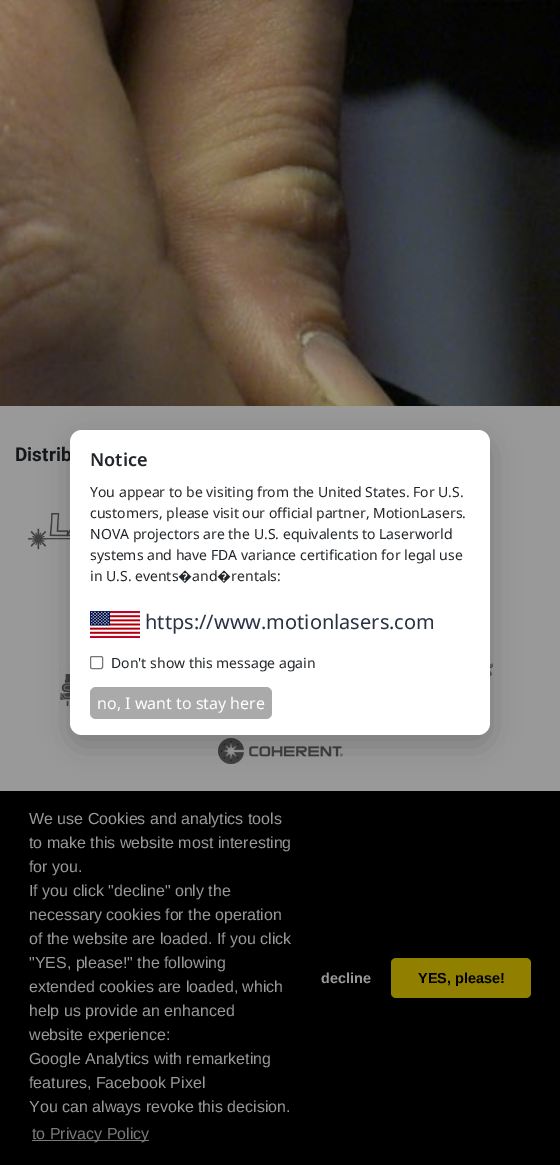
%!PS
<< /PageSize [560 1165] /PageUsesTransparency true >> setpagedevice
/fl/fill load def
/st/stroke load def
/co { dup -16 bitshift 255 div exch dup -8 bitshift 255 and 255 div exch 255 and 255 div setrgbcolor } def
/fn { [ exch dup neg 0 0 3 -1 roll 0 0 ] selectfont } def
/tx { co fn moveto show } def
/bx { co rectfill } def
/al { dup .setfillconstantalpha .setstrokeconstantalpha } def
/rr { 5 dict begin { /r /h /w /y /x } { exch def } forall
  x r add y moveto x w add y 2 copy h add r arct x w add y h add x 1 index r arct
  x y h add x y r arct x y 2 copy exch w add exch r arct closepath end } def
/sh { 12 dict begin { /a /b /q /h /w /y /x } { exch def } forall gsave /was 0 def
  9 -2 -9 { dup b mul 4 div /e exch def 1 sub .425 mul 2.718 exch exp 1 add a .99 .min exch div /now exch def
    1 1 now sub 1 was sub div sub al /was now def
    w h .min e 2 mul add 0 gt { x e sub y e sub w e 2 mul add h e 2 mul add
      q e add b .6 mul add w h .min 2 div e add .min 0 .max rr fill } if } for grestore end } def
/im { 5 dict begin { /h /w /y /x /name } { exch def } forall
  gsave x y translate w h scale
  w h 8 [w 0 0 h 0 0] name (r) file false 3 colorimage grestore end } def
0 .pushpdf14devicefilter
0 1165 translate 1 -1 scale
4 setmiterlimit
0 0 560 1165 16#999999 bx
(media/1.raw) 0 0 560 406 im
(media/2.raw) 28 512 42 38 im
(media/3.raw) 58 667 12 48 im
(media/4.raw) 490 663 3 13 im
(media/5.raw) 218 738 125 26 im
16#000000 co
70 440 420 305 12 15 .2 sh
0 791 560 374 16#000000 bx
32 1140 117 1 16#7A7A7A bx
16#918000 co
391 958 140 40 5 rr fl
(Distrib) 15 461 /Roboto-Bold 19 16#141719 tx
16#FFFFFF co
70 430 420 305 12 rr fl
(Notice) 90 466 /NotoSans-SemiBold 18 16#22262A tx
(You appear to be visiting from the United States. For U.S.) 90 497 /NotoSans-Regular 14 16#22262A tx
(customers, please visit our official partner, MotionLasers.) 90 518 /NotoSans-Regular 14 16#22262A tx
(NOVA projectors are the U.S. equivalents to Laserworld) 90 539 /NotoSans-Regular 14 16#22262A tx
(systems and have FDA variance certification for legal use) 90 560 /NotoSans-Regular 14 16#22262A tx
(in U.S. events�and�rentals:) 90 581 /NotoSans-Regular 14 16#22262A tx
(media/6.raw) 90 611 50 27 im
(https://www.motionlasers.com) 145 629 /NotoSans-Regular 20 16#283242 tx
16#767676 co
90.5 656.5 12 12 1.5 rr st
(Don't show this message again) 111 668 /NotoSans-Regular 14 16#22262A tx
16#AAAAAA co
90 687 182 32 6 rr fl
(no, I want to stay here) 97 709 /NotoSans-Regular 16 16#FFFFFF tx
(We use Cookies and analytics tools) 29 824 /LiberationSans-Regular 16 16#999999 tx
(to make this website most interesting) 29 848 /LiberationSans-Regular 16 16#999999 tx
(for you.) 29 872 /LiberationSans-Regular 16 16#999999 tx
(If you click "decline" only the) 29 896 /LiberationSans-Regular 16 16#999999 tx
(necessary cookies for the operation) 29 920 /LiberationSans-Regular 16 16#999999 tx
(of the website are loaded. If you click) 29 944 /LiberationSans-Regular 16 16#999999 tx
("YES, please!" the following) 29 968 /LiberationSans-Regular 16 16#999999 tx
(extended cookies are loaded, which) 29 992 /LiberationSans-Regular 16 16#999999 tx
(help us provide an enhanced) 29 1016 /LiberationSans-Regular 16 16#999999 tx
(website experience:) 29 1040 /LiberationSans-Regular 16 16#999999 tx
(Google Analytics with remarketing) 29 1064 /LiberationSans-Regular 16 16#999999 tx
(features, Facebook Pixel) 29 1088 /LiberationSans-Regular 16 16#999999 tx
(You can always revoke this decision.) 29 1112 /LiberationSans-Regular 16 16#999999 tx
(to Privacy Policy) 32 1139 /LiberationSans-Regular 16 16#7A7A7A tx
(decline) 321 983 /LiberationSans-Bold 14.5 16#999999 tx
(YES, please!) 418 983 /LiberationSans-Bold 14.5 16#000000 tx
.poppdf14devicefilter showpage
